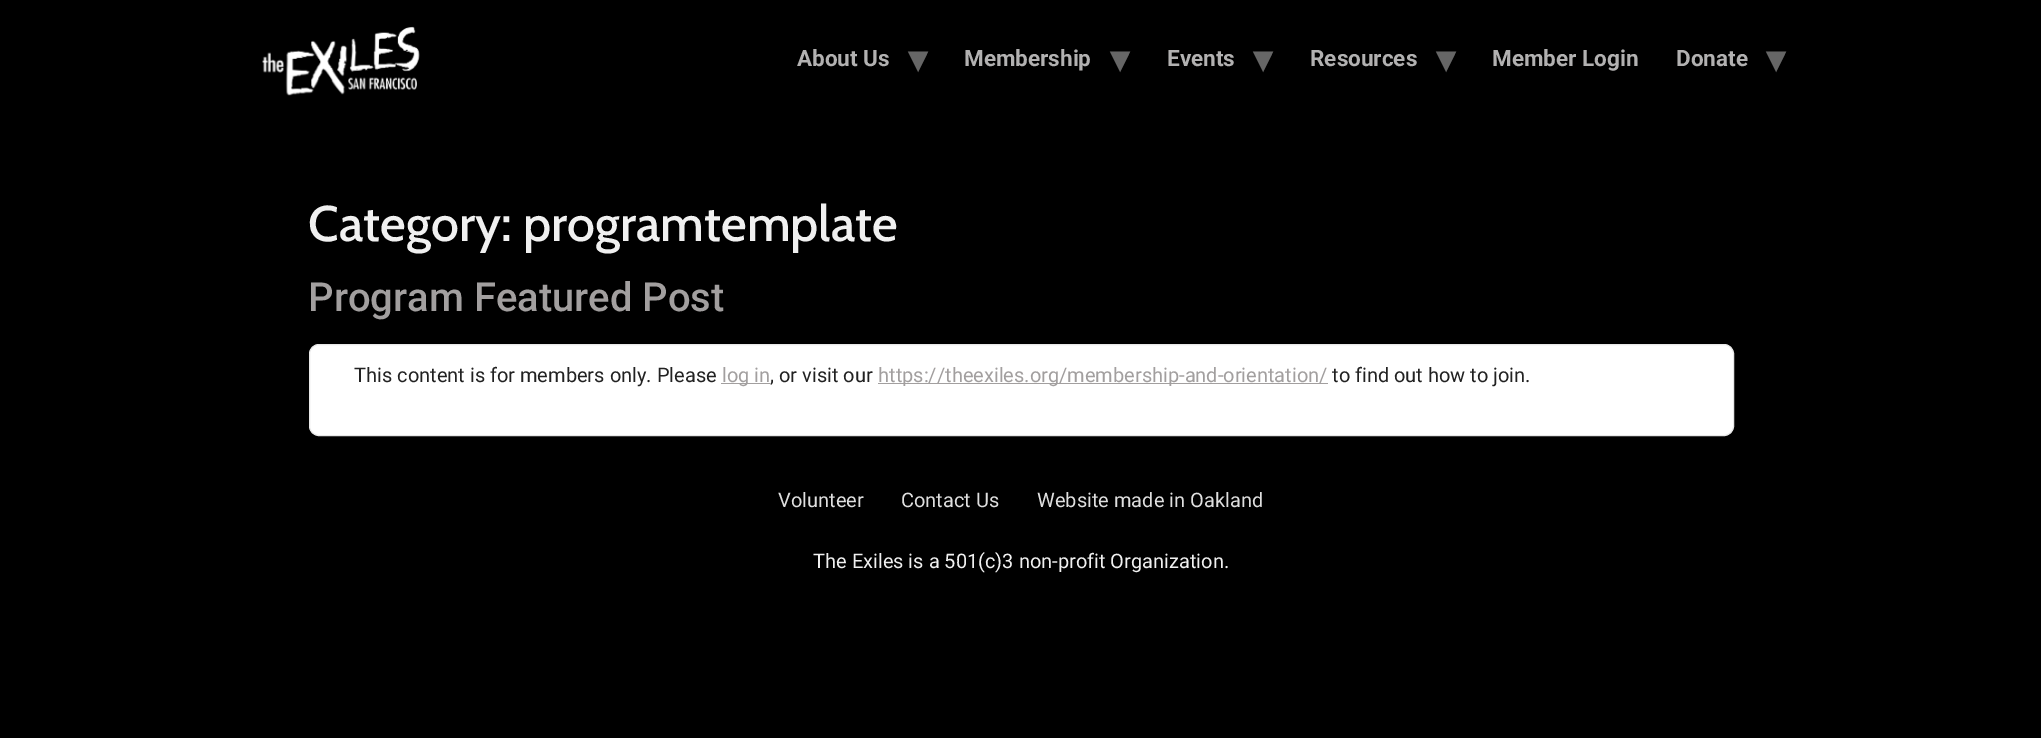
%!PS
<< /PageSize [2041 738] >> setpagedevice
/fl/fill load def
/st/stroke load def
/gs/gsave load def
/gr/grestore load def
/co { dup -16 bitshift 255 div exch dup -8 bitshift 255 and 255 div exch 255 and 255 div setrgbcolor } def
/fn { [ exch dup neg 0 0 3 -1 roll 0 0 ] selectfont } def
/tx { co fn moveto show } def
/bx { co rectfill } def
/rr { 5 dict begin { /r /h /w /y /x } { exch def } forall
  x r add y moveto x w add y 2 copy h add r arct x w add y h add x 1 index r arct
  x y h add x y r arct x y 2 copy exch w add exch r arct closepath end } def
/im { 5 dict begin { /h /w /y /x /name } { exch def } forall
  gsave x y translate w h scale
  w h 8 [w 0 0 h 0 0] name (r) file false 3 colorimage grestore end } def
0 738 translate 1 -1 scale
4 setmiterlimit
0 0 2041 738 16#000000 bx
(media/1.raw) 262 26 158 70 im
16#FFFFFF co
309.5 344.5 1424 91 9.5 rr gs fl gr
16#E8E8E8 co
st
721 383 49 1 16#A29F9F bx
878 383 450 1 16#A29F9F bx
(About Us) 797 66 /Roboto-Bold 22.5 16#B2B1B1 tx
(▾) 908 72 /DejaVuSans-Bold 38 16#666666 tx
(Membership) 964 66 /Roboto-Bold 22.5 16#B2B1B1 tx
(▾) 1110 72 /DejaVuSans-Bold 38 16#666666 tx
(Events) 1167 66 /Roboto-Bold 22.5 16#B2B1B1 tx
(▾) 1253 72 /DejaVuSans-Bold 38 16#666666 tx
(Resources) 1310 66 /Roboto-Bold 22.5 16#B2B1B1 tx
(▾) 1436 72 /DejaVuSans-Bold 38 16#666666 tx
(Member Login) 1492 66 /Roboto-Bold 22.5 16#B2B1B1 tx
(Donate) 1676 66 /Roboto-Bold 22.5 16#B2B1B1 tx
(▾) 1766 72 /DejaVuSans-Bold 38 16#666666 tx
(Category: programtemplate) 308 241 /Cabin-Medium 50 16#F0F0F0 tx
(Program Featured Post) 308 311 /Roboto-Medium 40 16#A29F9F tx
(This content is for members only. Please) 354 382 /Roboto-Regular 20 16#222222 tx
(log in) 722 382 /Roboto-Regular 20 16#A29F9F tx
(, or visit our) 770 382 /Roboto-Regular 20 16#222222 tx
(https://theexiles.org/membership-and-orientation/) 878 382 /Roboto-Regular 20 16#A29F9F tx
(to find out how to join.) 1332 382 /Roboto-Regular 20 16#222222 tx
(Volunteer) 778 507 /Roboto-Regular 20 16#DFDFDF tx
(Contact Us) 901 507 /Roboto-Regular 20 16#DFDFDF tx
(Website made in Oakland) 1037 507 /Roboto-Regular 20 16#DFDFDF tx
(The Exiles is a 501\(c\)3 non-profit Organization.) 813 568 /Roboto-Regular 20 16#F0F0F0 tx
showpage
